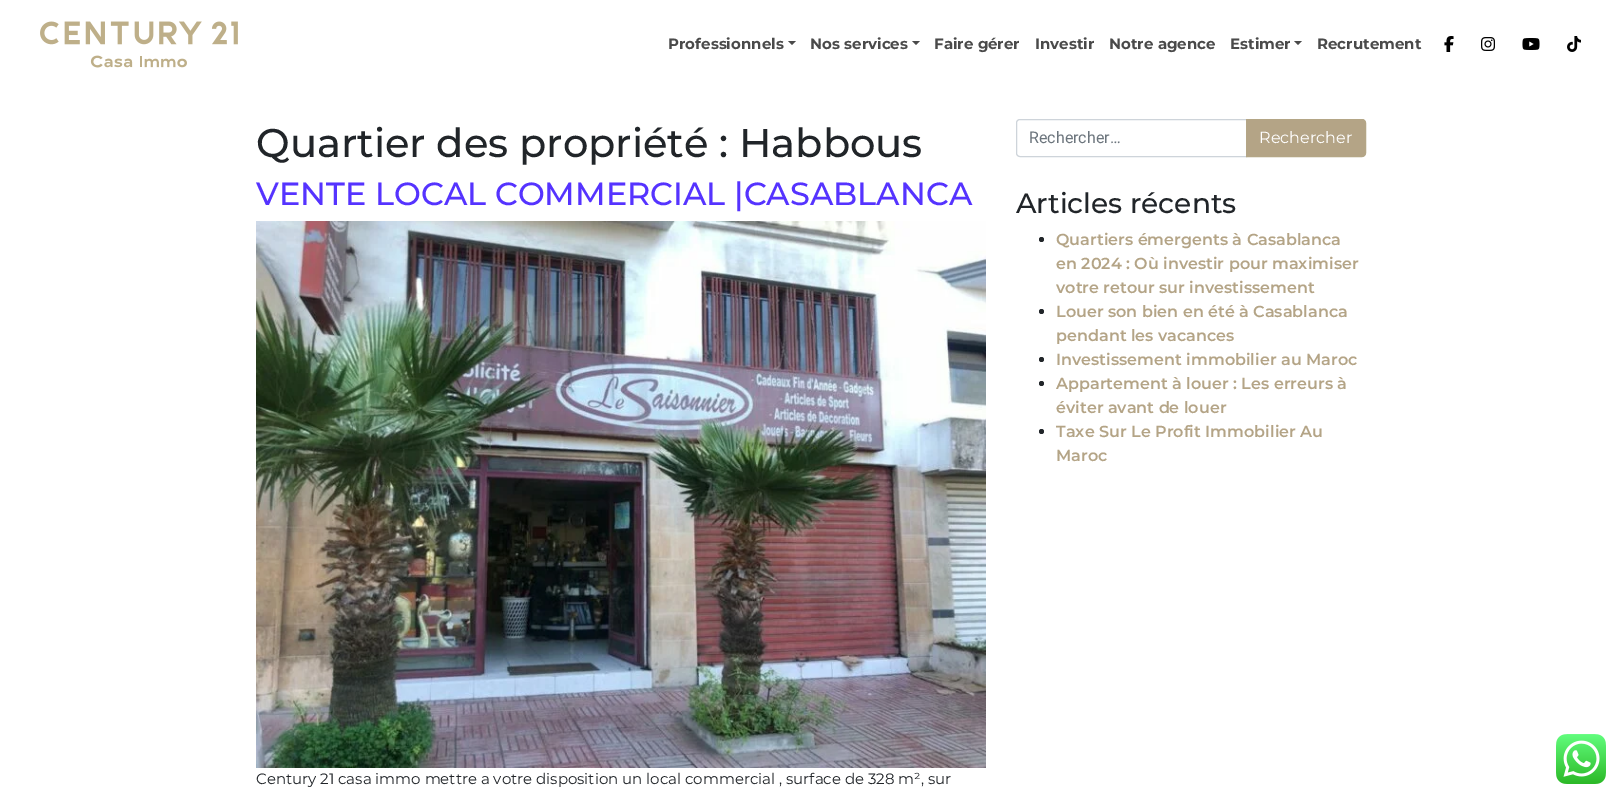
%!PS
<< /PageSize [1621 799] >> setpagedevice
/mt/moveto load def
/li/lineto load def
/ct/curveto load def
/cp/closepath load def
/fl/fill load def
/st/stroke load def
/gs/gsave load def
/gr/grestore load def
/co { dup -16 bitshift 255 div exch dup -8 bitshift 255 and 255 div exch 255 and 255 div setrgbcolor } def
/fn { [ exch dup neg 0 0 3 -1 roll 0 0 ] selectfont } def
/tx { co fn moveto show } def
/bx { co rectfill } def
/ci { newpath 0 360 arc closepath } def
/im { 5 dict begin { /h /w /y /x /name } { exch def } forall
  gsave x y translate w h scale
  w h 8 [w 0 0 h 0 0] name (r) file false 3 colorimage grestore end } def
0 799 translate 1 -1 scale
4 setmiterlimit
0 0 1621 799 16#FFFFFF bx
(media/1.raw) 40 21 198 47 im
16#4A4A4A co
788 41 mt 796 41 li 792 45 li cp fl
912 41 mt 920 41 li 916 45 li cp fl
1294 41 mt 1302 41 li 1298 45 li cp fl
(media/2.raw) 1444 36 10 16 im
(media/3.raw) 1481 37 14 14 im
(media/4.raw) 1522 38 18 12 im
(media/5.raw) 1567 36 14 16 im
(media/6.raw) 256 221 730 547 im
16#CED4DA co
1020 119.5 mt 1246.5 119.5 li 1246.5 156.5 li 1020 156.5 li 1018 156.5 1016.5 155 1016.5 153 ct 1016.5 123 li 1016.5 121 1018 119.5 1020 119.5 ct cp st
16#B4A486 co
1246.5 119.5 mt 1362 119.5 li 1364 119.5 1365.5 121 1365.5 123 ct 1365.5 153 li 1365.5 155 1364 156.5 1362 156.5 ct 1246.5 156.5 li cp gs fl gr
16#B4A686 co
st
16#212529 co
1041.5 239.5 2.5 ci fl
1041.5 311.5 2.5 ci fl
1041.5 359.5 2.5 ci fl
1041.5 383.5 2.5 ci fl
1041.5 431.5 2.5 ci fl
(media/7.raw) 1556 734 50 50 im
(Professionnels) 668 49 /Montserrat-Bold 15 16#4A4A4A tx
(Nos services) 810 49 /Montserrat-Bold 15 16#4A4A4A tx
(Faire gérer) 934 49 /Montserrat-Bold 15 16#4A4A4A tx
(Investir) 1035 49 /Montserrat-Bold 15 16#4A4A4A tx
(Notre agence) 1109 49 /Montserrat-Bold 15 16#4A4A4A tx
(Estimer) 1230 49 /Montserrat-Bold 15 16#4A4A4A tx
(Recrutement) 1317 49 /Montserrat-Bold 15 16#4A4A4A tx
(Quartier des propriété : Habbous) 256 157 /Montserrat-Medium 40 16#212529 tx
(VENTE LOCAL COMMERCIAL |CASABLANCA) 256 205 /Montserrat-Medium 32 16#5533FF tx
(Century 21 casa immo mettre a votre disposition un local commercial , surface de 328 m², sur) 256 784 /Montserrat-Regular 15 16#212529 tx
(Rechercher…) 1029 143 /Roboto-Regular 16 16#6C757D tx
(Rechercher) 1259 143 /Montserrat-Regular 16 16#FFFFFF tx
(Articles récents) 1016 213 /Montserrat-Medium 28 16#212529 tx
(Quartiers émergents à Casablanca) 1056 245 /Montserrat-SemiBold 16 16#B4A486 tx
(en 2024 : Où investir pour maximiser) 1056 269 /Montserrat-SemiBold 16 16#B4A486 tx
(votre retour sur investissement) 1056 293 /Montserrat-SemiBold 16 16#B4A486 tx
(Louer son bien en été à Casablanca) 1056 317 /Montserrat-SemiBold 16 16#B4A486 tx
(pendant les vacances) 1056 341 /Montserrat-SemiBold 16 16#B4A486 tx
(Investissement immobilier au Maroc) 1056 365 /Montserrat-SemiBold 16 16#B4A486 tx
(Appartement à louer : Les erreurs à) 1056 389 /Montserrat-SemiBold 16 16#B4A486 tx
(éviter avant de louer) 1056 413 /Montserrat-SemiBold 16 16#B4A486 tx
(Taxe Sur Le Profit Immobilier Au) 1056 437 /Montserrat-SemiBold 16 16#B4A486 tx
(Maroc) 1056 461 /Montserrat-SemiBold 16 16#B4A486 tx
showpage
